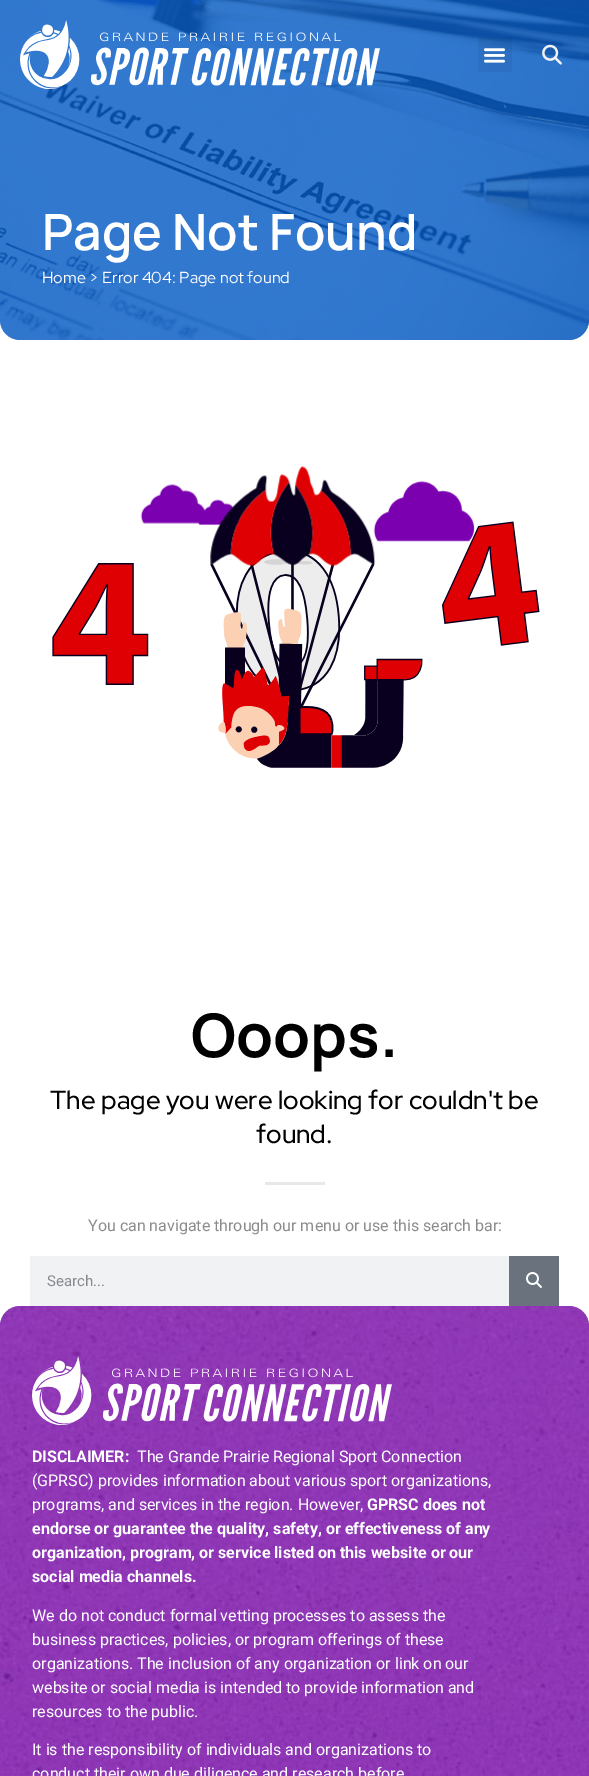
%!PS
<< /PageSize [589 1776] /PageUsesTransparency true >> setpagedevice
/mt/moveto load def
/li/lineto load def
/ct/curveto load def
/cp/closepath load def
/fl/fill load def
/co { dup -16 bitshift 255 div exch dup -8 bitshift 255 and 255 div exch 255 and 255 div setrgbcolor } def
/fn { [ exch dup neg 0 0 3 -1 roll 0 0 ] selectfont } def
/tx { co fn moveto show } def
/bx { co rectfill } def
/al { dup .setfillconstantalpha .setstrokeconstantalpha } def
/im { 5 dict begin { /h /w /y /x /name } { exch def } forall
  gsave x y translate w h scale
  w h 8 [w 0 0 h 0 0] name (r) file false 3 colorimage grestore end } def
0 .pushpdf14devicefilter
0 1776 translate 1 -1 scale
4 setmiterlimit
0 0 589 1776 16#FFFFFF bx
(media/4.raw) 0 0 589 340 im
0.8 al
16#0058C4 co
0 0 mt 589 0 li 589 320 li 589 331 580 340 569 340 ct 20 340 li 9 340 0 331 0 320 ct cp fl
1 al
(media/1.raw) 20 20 360 69 im
0.05 al
478 37 34 35 16#000000 bx
1 al
(media/2.raw) 484 48 21 15 im
(media/3.raw) 542 44 20 21 im
(media/5.raw) 52 466 488 302 im
265 1182 60 3 16#E8E8E8 bx
30 1256 479 50 16#F1F2F3 bx
509 1256 50 50 16#69727D bx
(media/6.raw) 526 1272 16 16 im
16#E1E1E1 co
20 1306 mt 569 1306 li 580 1306 589 1315 589 1326 ct 589 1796 li 0 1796 li 0 1326 li 0 1315 9 1306 20 1306 ct cp fl
(media/7.raw) 0 1306 589 470 im
0.72 al
16#7B00B0 co
20 1306 mt 569 1306 li 580 1306 589 1315 589 1326 ct 589 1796 li 0 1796 li 0 1326 li 0 1315 9 1306 20 1306 ct cp fl
1 al
(media/8.raw) 32 1356 360 69 im
(Page Not Found) 42 250 /Manrope-SemiBold 50 16#FFFFFF tx
(Home > Error 404: Page not found) 42 283 /RedHatDisplay-Regular 16 16#FFFFFF tx
(Ooops.) 191 1057 /Manrope-Bold 60 16#000000 tx
(The page you were looking for couldn't be) 50 1109 /RedHatDisplay-Medium 26 16#000000 tx
(found.) 256 1143 /RedHatDisplay-Medium 26 16#000000 tx
(You can navigate through our menu or use this search bar:) 88 1231 /Roboto-Regular 16 16#8C8C8C tx
(Search...) 47 1286 /Roboto-Regular 15 16#868A8E tx
(DISCLAIMER:) 32 1462 /Roboto-Bold 16 16#FFFFFF tx
(The Grande Prairie Regional Sport Connection) 137 1462 /Roboto-Regular 16 16#FFFFFF tx
(\(GPRSC\) provides information about various sport organizations,) 32 1486 /Roboto-Regular 16 16#FFFFFF tx
(programs, and services in the region. However,) 32 1510 /Roboto-Regular 16 16#FFFFFF tx
(GPRSC does not) 367 1510 /Roboto-Bold 16 16#FFFFFF tx
(endorse or guarantee the quality, safety, or effectiveness of any) 32 1534 /Roboto-Bold 16 16#FFFFFF tx
(organization, program, or service listed on this website or our) 32 1558 /Roboto-Bold 16 16#FFFFFF tx
(social media channels.) 32 1582 /Roboto-Bold 16 16#FFFFFF tx
(We do not conduct formal vetting processes to assess the) 32 1621 /Roboto-Regular 16 16#FFFFFF tx
(business practices, policies, or program offerings of these) 32 1645 /Roboto-Regular 16 16#FFFFFF tx
(organizations. The inclusion of any organization or link on our) 32 1669 /Roboto-Regular 16 16#FFFFFF tx
(website or social media is intended to provide information and) 32 1693 /Roboto-Regular 16 16#FFFFFF tx
(resources to the public.) 32 1717 /Roboto-Regular 16 16#FFFFFF tx
(It is the responsibility of individuals and organizations to) 32 1755 /Roboto-Regular 16 16#FFFFFF tx
(conduct their own due diligence and research before) 32 1779 /Roboto-Regular 16 16#FFFFFF tx
.poppdf14devicefilter showpage
